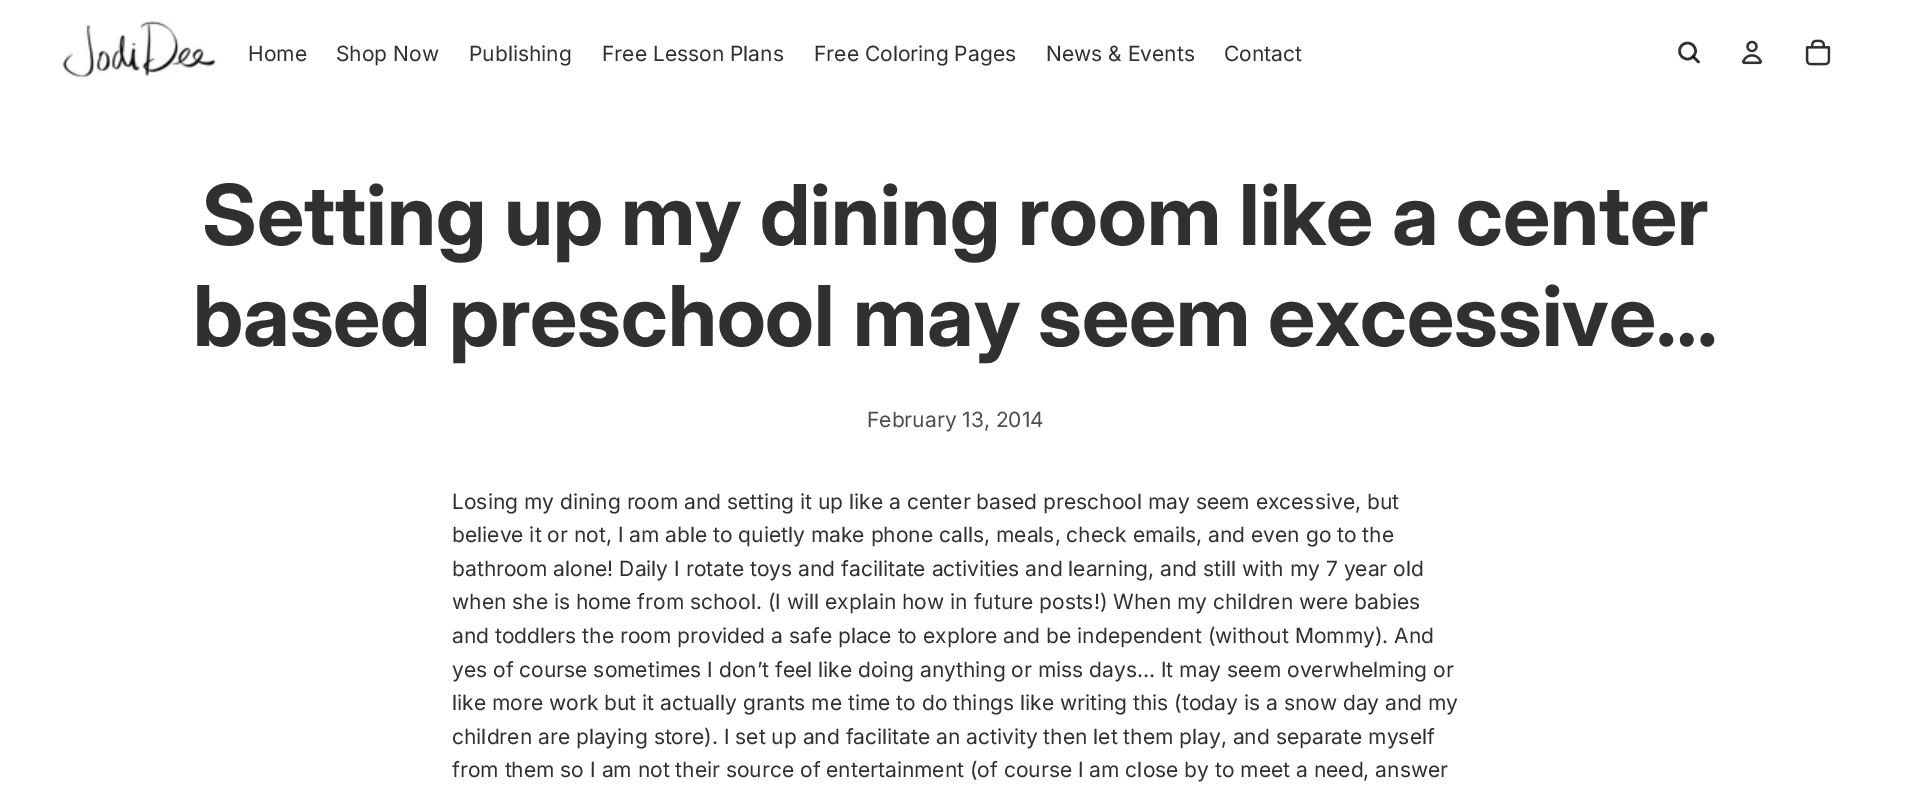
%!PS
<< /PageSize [1911 806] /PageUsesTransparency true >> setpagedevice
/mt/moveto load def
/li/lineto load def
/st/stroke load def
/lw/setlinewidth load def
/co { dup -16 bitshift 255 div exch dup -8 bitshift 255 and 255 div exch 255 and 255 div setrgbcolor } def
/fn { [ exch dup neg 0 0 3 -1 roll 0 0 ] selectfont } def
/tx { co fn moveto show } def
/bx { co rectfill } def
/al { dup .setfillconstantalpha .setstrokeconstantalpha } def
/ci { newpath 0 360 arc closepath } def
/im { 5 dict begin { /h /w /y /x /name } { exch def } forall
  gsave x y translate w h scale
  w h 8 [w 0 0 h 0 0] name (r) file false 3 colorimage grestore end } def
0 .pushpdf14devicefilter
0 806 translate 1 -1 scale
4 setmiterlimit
0 0 1911 806 16#FFFFFF bx
(media/1.raw) 60 20 157 59 im
16#303030 co
2.5 lw
1687.5 51 8 ci st
0.81 al
16#000000 co
1 setlinecap
1 setlinejoin
1693 56.5 mt 1698.5 62 li st
1 al
(media/2.raw) 1742 40 20 25 im
(media/3.raw) 1805 39 26 27 im
(Home) 248 61 /Inter-Regular 21 16#303030 tx
(Shop Now) 336 61 /Inter-Regular 21 16#303030 tx
(Publishing) 469 61 /Inter-Regular 21 16#303030 tx
(Free Lesson Plans) 602 61 /Inter-Regular 21 16#303030 tx
(Free Coloring Pages) 814 61 /Inter-Regular 21 16#303030 tx
(News & Events) 1046 61 /Inter-Regular 21 16#303030 tx
(Contact) 1224 61 /Inter-Regular 21 16#303030 tx
(Setting up my dining room like a center) 202 245 /Inter-Bold 84 16#303030 tx
(based preschool may seem excessive…) 193 346 /Inter-Bold 84 16#303030 tx
(February 13, 2014) 867 427 /Inter-Regular 21 16#4D4D4D tx
(Losing my dining room and setting it up like a center based preschool may seem excessive, but) 452 509 /Inter-Regular 21 16#303030 tx
(believe it or not, I am able to quietly make phone calls, meals, check emails, and even go to the) 452 542 /Inter-Regular 21 16#303030 tx
(bathroom alone! Daily I rotate toys and facilitate activities and learning, and still with my 7 year old) 452 576 /Inter-Regular 21 16#303030 tx
(when she is home from school. \(I will explain how in future posts!\) When my children were babies) 452 609 /Inter-Regular 21 16#303030 tx
(and toddlers the room provided a safe place to explore and be independent \(without Mommy\). And) 452 643 /Inter-Regular 21 16#303030 tx
(yes of course sometimes I don’t feel like doing anything or miss days… It may seem overwhelming or) 452 677 /Inter-Regular 21 16#303030 tx
(like more work but it actually grants me time to do things like writing this \(today is a snow day and my) 452 710 /Inter-Regular 21 16#303030 tx
(children are playing store\). I set up and facilitate an activity then let them play, and separate myself) 452 744 /Inter-Regular 21 16#303030 tx
(from them so I am not their source of entertainment \(of course I am close by to meet a need, answer) 452 777 /Inter-Regular 21 16#303030 tx
.poppdf14devicefilter showpage
